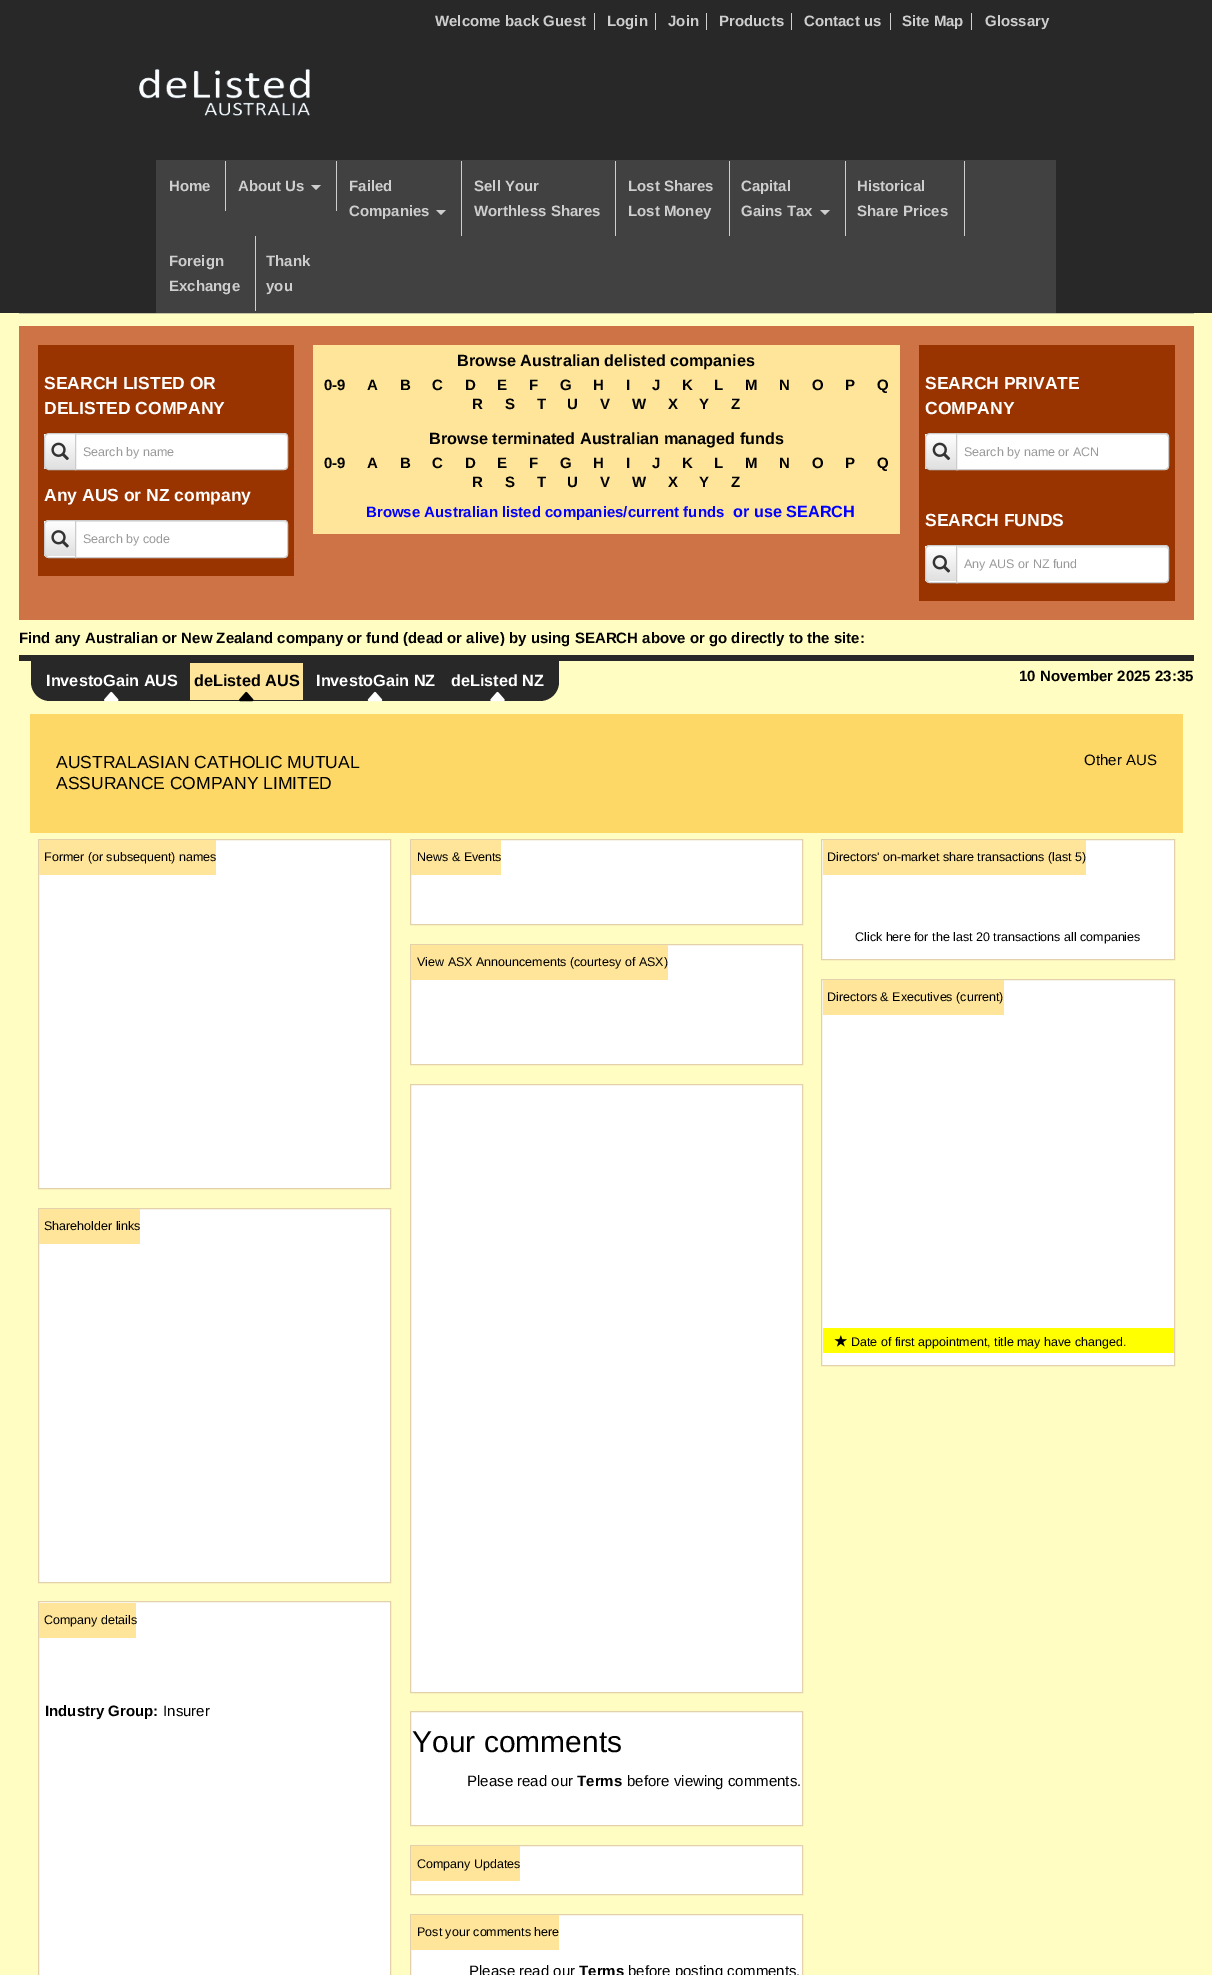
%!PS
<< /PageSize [1212 1975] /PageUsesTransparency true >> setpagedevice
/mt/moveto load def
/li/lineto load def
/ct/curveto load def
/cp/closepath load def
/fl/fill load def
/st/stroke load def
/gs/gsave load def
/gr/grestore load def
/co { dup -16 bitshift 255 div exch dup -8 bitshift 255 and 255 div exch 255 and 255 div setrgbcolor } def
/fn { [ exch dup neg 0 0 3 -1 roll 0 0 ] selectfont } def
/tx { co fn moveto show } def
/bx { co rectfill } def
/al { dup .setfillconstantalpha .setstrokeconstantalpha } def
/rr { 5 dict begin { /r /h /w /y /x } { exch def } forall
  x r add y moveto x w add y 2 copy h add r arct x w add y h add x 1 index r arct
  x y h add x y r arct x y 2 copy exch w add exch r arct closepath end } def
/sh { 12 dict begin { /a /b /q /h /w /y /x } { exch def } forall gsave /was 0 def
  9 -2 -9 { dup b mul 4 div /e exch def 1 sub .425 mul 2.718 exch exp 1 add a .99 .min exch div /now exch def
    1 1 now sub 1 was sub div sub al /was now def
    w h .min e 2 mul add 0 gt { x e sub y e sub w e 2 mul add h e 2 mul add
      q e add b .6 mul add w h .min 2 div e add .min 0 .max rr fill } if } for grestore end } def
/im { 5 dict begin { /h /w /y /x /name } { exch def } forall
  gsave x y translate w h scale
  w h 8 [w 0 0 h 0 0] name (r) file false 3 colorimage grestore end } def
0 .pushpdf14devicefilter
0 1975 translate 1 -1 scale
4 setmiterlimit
0 0 1212 1975 16#282828 bx
594 13 1 17 16#CECECE bx
655 13 1 17 16#CECECE bx
706 13 1 17 16#CECECE bx
791 13 1 17 16#CECECE bx
890 13 1 17 16#CECECE bx
971 13 1 17 16#CECECE bx
(media/1.raw) 139 69 171 47 im
156 160 900 153 16#414141 bx
225 161 1 50 16#CECECE bx
336 161 1 50 16#CECECE bx
311 185 mt 321 185 li 316 190 li cp fl
461 161 1 75 16#CECECE bx
436 210 mt 446 210 li 441 215 li cp fl
615 161 1 75 16#CECECE bx
729 161 1 75 16#CECECE bx
845 161 1 75 16#CECECE bx
820 210 mt 830 210 li 825 215 li cp fl
964 161 1 75 16#CECECE bx
255 236 1 75 16#CECECE bx
0 313 1212 1662 16#FFFDC2 bx
19 313 1175 1 16#C5C5A1 bx
19 326 1175 294 16#CE7346 bx
38 345 256 231 16#993400 bx
16#000000 co
44 434 32 37 5 .5 .07 sh
gs
49 433 mt 76 433 li 76 470 li 49 470 li 46 470 44 468 44 465 ct 44 438 li 44 435 46 433 49 433 ct cp clip newpath
gs 44 434 mt 75 434 li 75 469 li 44 469 li cp clip newpath
<< /ShadingType 2 /ColorSpace /DeviceRGB /Coords [60 434 60 469] /Extend [true true] /Function << /FunctionType 2 /Domain [0 1] /C0 [1 1 1] /C1 [.878 .878 .878] /N 1 >> >> shfill gr
gr
16#CCCCCC co
49 433.5 mt 75.5 433.5 li 75.5 469.5 li 49 469.5 li 46.5 469.5 44.5 467.5 44.5 465 ct 44.5 438 li 44.5 435.5 46.5 433.5 49 433.5 ct cp st
(media/2.raw) 51 442 18 18 im
16#FFFFFF co
75 433 mt 284 433 li 286 433 288 435 288 437 ct 288 466 li 288 468 286 470 284 470 ct 75 470 li cp fl
16#ECECEC co
76 435 mt 284 435 li 285 435 286 436 286 438 ct 286 437 286 435 284 434 ct 76 434 li cp fl
16#CCCCCC co
75.5 433.5 mt 284 433.5 li 286 433.5 287.5 435 287.5 437 ct 287.5 466 li 287.5 468 286 469.5 284 469.5 ct 75.5 469.5 li cp st
16#000000 co
44 521 32 38 5 .5 .07 sh
16#FFFFFF co
49 520 mt 76 520 li 76 558 li 49 558 li 46 558 44 556 44 553 ct 44 525 li 44 522 46 520 49 520 ct cp fl
gs
49 520 mt 76 520 li 76 558 li 49 558 li 46 558 44 556 44 553 ct 44 525 li 44 522 46 520 49 520 ct cp clip newpath
gs 44 521 mt 75 521 li 75 556 li 44 556 li cp clip newpath
<< /ShadingType 2 /ColorSpace /DeviceRGB /Coords [60 521 60 556] /Extend [true true] /Function << /FunctionType 2 /Domain [0 1] /C0 [1 1 1] /C1 [.878 .878 .878] /N 1 >> >> shfill gr
gr
16#CCCCCC co
49 520.5 mt 75.5 520.5 li 75.5 557.5 li 49 557.5 li 46.5 557.5 44.5 555.5 44.5 553 ct 44.5 525 li 44.5 522.5 46.5 520.5 49 520.5 ct cp st
(media/3.raw) 51 530 18 18 im
16#FFFFFF co
75 520 mt 284 520 li 286 520 288 522 288 524 ct 288 554 li 288 556 286 558 284 558 ct 75 558 li cp fl
16#ECECEC co
76 522 mt 284 522 li 285 522 286 524 286 525 ct 286 524 286 522 284 521 ct 76 521 li cp fl
16#CCCCCC co
75.5 520.5 mt 284 520.5 li 286 520.5 287.5 522 287.5 524 ct 287.5 554 li 287.5 556 286 557.5 284 557.5 ct 75.5 557.5 li cp st
313 345 587 189 16#FFE599 bx
919 345 256 256 16#993400 bx
16#000000 co
925 434 33 37 5 .5 .07 sh
gs
930 433 mt 958 433 li 958 470 li 930 470 li 927 470 925 468 925 465 ct 925 438 li 925 435 927 433 930 433 ct cp clip newpath
gs 925 434 mt 956 434 li 956 469 li 925 469 li cp clip newpath
<< /ShadingType 2 /ColorSpace /DeviceRGB /Coords [941 434 941 469] /Extend [true true] /Function << /FunctionType 2 /Domain [0 1] /C0 [1 1 1] /C1 [.878 .878 .878] /N 1 >> >> shfill gr
gr
16#CCCCCC co
930 433.5 mt 957.5 433.5 li 957.5 469.5 li 930 469.5 li 927.5 469.5 925.5 467.5 925.5 465 ct 925.5 438 li 925.5 435.5 927.5 433.5 930 433.5 ct cp st
(media/4.raw) 932 442 19 19 im
16#FFFFFF co
956 433 mt 1165 433 li 1167 433 1169 435 1169 437 ct 1169 466 li 1169 468 1167 470 1165 470 ct 956 470 li cp fl
16#ECECEC co
958 435 mt 1165 435 li 1166 435 1168 436 1168 438 ct 1168 437 1168 435 1166 434 ct 958 434 li cp fl
16#CCCCCC co
956.5 433.5 mt 1165 433.5 li 1167 433.5 1168.5 435 1168.5 437 ct 1168.5 466 li 1168.5 468 1167 469.5 1165 469.5 ct 956.5 469.5 li cp st
16#000000 co
925 546 33 38 5 .5 .07 sh
16#FFFFFF co
930 545 mt 958 545 li 958 583 li 930 583 li 927 583 925 581 925 578 ct 925 550 li 925 547 927 545 930 545 ct cp fl
gs
930 545 mt 958 545 li 958 583 li 930 583 li 927 583 925 581 925 578 ct 925 550 li 925 547 927 545 930 545 ct cp clip newpath
gs 925 546 mt 956 546 li 956 581 li 925 581 li cp clip newpath
<< /ShadingType 2 /ColorSpace /DeviceRGB /Coords [941 546 941 581] /Extend [true true] /Function << /FunctionType 2 /Domain [0 1] /C0 [1 1 1] /C1 [.878 .878 .878] /N 1 >> >> shfill gr
gr
16#CCCCCC co
930 545.5 mt 957.5 545.5 li 957.5 582.5 li 930 582.5 li 927.5 582.5 925.5 580.5 925.5 578 ct 925.5 550 li 925.5 547.5 927.5 545.5 930 545.5 ct cp st
(media/5.raw) 932 555 19 18 im
16#FFFFFF co
956 545 mt 1165 545 li 1167 545 1169 547 1169 549 ct 1169 579 li 1169 581 1167 583 1165 583 ct 956 583 li cp fl
16#ECECEC co
958 548 mt 1165 548 li 1166 548 1168 549 1168 550 ct 1168 549 1168 547 1166 546 ct 958 546 li cp fl
16#CCCCCC co
956.5 545.5 mt 1165 545.5 li 1167 545.5 1168.5 547 1168.5 549 ct 1168.5 579 li 1168.5 581 1167 582.5 1165 582.5 ct 956.5 582.5 li cp st
19 655 1175 6 16#282828 bx
31 661 mt 559 661 li 559 682 li 559 692.5 550.5 701 540 701 ct 50 701 li 39.5 701 31 692.5 31 682 ct cp fl
(media/6.raw) 104 691 15 11 im
190 663 113 37 16#FFE599 bx
(media/7.raw) 239 691 15 11 im
(media/8.raw) 367 691 16 11 im
(media/9.raw) 490 691 15 11 im
30 714 1153 119 16#FDD866 bx
16#FFFFFF co
38.5 839.5 mt 390.5 839.5 li 390.5 1188.5 li 38.5 1188.5 li cp gs fl gr
16#E3D1AB co
st
39 840 177 35 16#FFE599 bx
16#FFFFFF co
38.5 1208.5 mt 390.5 1208.5 li 390.5 1582.5 li 38.5 1582.5 li cp gs fl gr
16#E3D1AB co
st
39 1209 101 35 16#FFE599 bx
16#FFFFFF co
38.5 1601.5 mt 390.5 1601.5 li 390.5 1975.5 li 38.5 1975.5 li cp gs fl gr
16#E3D1AB co
st
39 1603 97 35 16#FFE599 bx
16#FFFFFF co
410.5 839.5 mt 802.5 839.5 li 802.5 924.5 li 410.5 924.5 li cp gs fl gr
16#E3D1AB co
st
411 840 90 35 16#FFE599 bx
16#FFFFFF co
410.5 944.5 mt 802.5 944.5 li 802.5 1064.5 li 410.5 1064.5 li cp gs fl gr
16#E3D1AB co
st
411 945 257 35 16#FFE599 bx
16#FFFFFF co
410.5 1084.5 mt 802.5 1084.5 li 802.5 1692.5 li 410.5 1692.5 li cp gs fl gr
16#E3D1AB co
st
16#FFFFFF co
410.5 1711.5 mt 802.5 1711.5 li 802.5 1825.5 li 410.5 1825.5 li cp gs fl gr
16#E3D1AB co
st
16#FFFFFF co
410.5 1845.5 mt 802.5 1845.5 li 802.5 1894.5 li 410.5 1894.5 li cp gs fl gr
16#E3D1AB co
st
411 1846 109 35 16#FFE599 bx
16#FFFFFF co
410.5 1914.5 mt 802.5 1914.5 li 802.5 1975.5 li 410.5 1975.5 li cp gs fl gr
16#E3D1AB co
st
411 1915 148 35 16#FFE599 bx
16#FFFFFF co
821.5 839.5 mt 1174.5 839.5 li 1174.5 959.5 li 821.5 959.5 li cp gs fl gr
16#E3D1AB co
st
823 840 263 35 16#FFE599 bx
16#FFFFFF co
821.5 979.5 mt 1174.5 979.5 li 1174.5 1365.5 li 821.5 1365.5 li cp gs fl gr
16#E3D1AB co
st
823 980 181 35 16#FFE599 bx
823 1328 351 25 16#FFFF00 bx
(media/10.raw) 834 1335 13 12 im
(Welcome back Guest) 435 26 /LiberationSans-Bold 15 16#CECECE tx
(Login) 607 26 /LiberationSans-Bold 15 16#CECECE tx
(Join) 668 26 /LiberationSans-Bold 15 16#CECECE tx
(Products) 719 26 /LiberationSans-Bold 15 16#CECECE tx
(Contact us) 804 26 /LiberationSans-Bold 15 16#CECECE tx
(Site Map) 902 26 /LiberationSans-Bold 15 16#CECECE tx
(Glossary) 985 26 /LiberationSans-Bold 15 16#CECECE tx
(Home) 169 191 /LiberationSans-Bold 15 16#CECECE tx
(About Us) 238 191 /LiberationSans-Bold 15 16#CECECE tx
(Failed) 349 191 /LiberationSans-Bold 15 16#CECECE tx
(Companies) 349 216 /LiberationSans-Bold 15 16#CECECE tx
(Sell Your) 474 191 /LiberationSans-Bold 15 16#CECECE tx
(Worthless Shares) 474 216 /LiberationSans-Bold 15 16#CECECE tx
(Lost Shares) 628 191 /LiberationSans-Bold 15 16#CECECE tx
(Lost Money) 628 216 /LiberationSans-Bold 15 16#CECECE tx
(Capital) 741 191 /LiberationSans-Bold 15 16#CECECE tx
(Gains Tax) 741 216 /LiberationSans-Bold 15 16#CECECE tx
(Historical) 857 191 /LiberationSans-Bold 15 16#CECECE tx
(Share Prices) 857 216 /LiberationSans-Bold 15 16#CECECE tx
(Foreign) 169 266 /LiberationSans-Bold 15 16#CECECE tx
(Exchange) 169 291 /LiberationSans-Bold 15 16#CECECE tx
(Thank) 266 266 /LiberationSans-Bold 15 16#CECECE tx
(you) 266 291 /LiberationSans-Bold 15 16#CECECE tx
(SEARCH LISTED OR) 44 389 /LiberationSans-Bold 17.5 16#FFFFFF tx
(DELISTED COMPANY) 44 414 /LiberationSans-Bold 17.5 16#FFFFFF tx
(Search by name) 83 456 /LiberationSans-Regular 12.5 16#999999 tx
(Any AUS or NZ company) 44 501 /LiberationSans-Bold 17.5 16#FFFFFF tx
(Search by code) 83 543 /LiberationSans-Regular 12.5 16#999999 tx
(Browse Australian delisted companies) 457 366 /LiberationSans-Bold 16.25 16#000000 tx
(0-9) 324 390 /LiberationSans-Bold 15 16#000000 tx
(A) 367 390 /LiberationSans-Bold 15 16#000000 tx
(B) 400 390 /LiberationSans-Bold 15 16#000000 tx
(C) 432 390 /LiberationSans-Bold 15 16#000000 tx
(D) 465 390 /LiberationSans-Bold 15 16#000000 tx
(E) 497 390 /LiberationSans-Bold 15 16#000000 tx
(F) 529 390 /LiberationSans-Bold 15 16#000000 tx
(G) 560 390 /LiberationSans-Bold 15 16#000000 tx
(H) 593 390 /LiberationSans-Bold 15 16#000000 tx
(I) 626 390 /LiberationSans-Bold 15 16#000000 tx
(J) 652 390 /LiberationSans-Bold 15 16#000000 tx
(K) 682 390 /LiberationSans-Bold 15 16#000000 tx
(L) 714 390 /LiberationSans-Bold 15 16#000000 tx
(M) 745 390 /LiberationSans-Bold 15 16#000000 tx
(N) 779 390 /LiberationSans-Bold 15 16#000000 tx
(O) 812 390 /LiberationSans-Bold 15 16#000000 tx
(P) 845 390 /LiberationSans-Bold 15 16#000000 tx
(Q) 877 390 /LiberationSans-Bold 15 16#000000 tx
(R) 472 409 /LiberationSans-Bold 15 16#000000 tx
(S) 505 409 /LiberationSans-Bold 15 16#000000 tx
(T) 537 409 /LiberationSans-Bold 15 16#000000 tx
(U) 567 409 /LiberationSans-Bold 15 16#000000 tx
(V) 600 409 /LiberationSans-Bold 15 16#000000 tx
(W) 632 409 /LiberationSans-Bold 15 16#000000 tx
(X) 668 409 /LiberationSans-Bold 15 16#000000 tx
(Y) 699 409 /LiberationSans-Bold 15 16#000000 tx
(Z) 731 409 /LiberationSans-Bold 15 16#000000 tx
(Browse terminated Australian managed funds) 429 444 /LiberationSans-Bold 16.25 16#000000 tx
(0-9) 324 468 /LiberationSans-Bold 15 16#000000 tx
(A) 367 468 /LiberationSans-Bold 15 16#000000 tx
(B) 400 468 /LiberationSans-Bold 15 16#000000 tx
(C) 432 468 /LiberationSans-Bold 15 16#000000 tx
(D) 465 468 /LiberationSans-Bold 15 16#000000 tx
(E) 497 468 /LiberationSans-Bold 15 16#000000 tx
(F) 529 468 /LiberationSans-Bold 15 16#000000 tx
(G) 560 468 /LiberationSans-Bold 15 16#000000 tx
(H) 593 468 /LiberationSans-Bold 15 16#000000 tx
(I) 626 468 /LiberationSans-Bold 15 16#000000 tx
(J) 652 468 /LiberationSans-Bold 15 16#000000 tx
(K) 682 468 /LiberationSans-Bold 15 16#000000 tx
(L) 714 468 /LiberationSans-Bold 15 16#000000 tx
(M) 745 468 /LiberationSans-Bold 15 16#000000 tx
(N) 779 468 /LiberationSans-Bold 15 16#000000 tx
(O) 812 468 /LiberationSans-Bold 15 16#000000 tx
(P) 845 468 /LiberationSans-Bold 15 16#000000 tx
(Q) 877 468 /LiberationSans-Bold 15 16#000000 tx
(R) 472 487 /LiberationSans-Bold 15 16#000000 tx
(S) 505 487 /LiberationSans-Bold 15 16#000000 tx
(T) 537 487 /LiberationSans-Bold 15 16#000000 tx
(U) 567 487 /LiberationSans-Bold 15 16#000000 tx
(V) 600 487 /LiberationSans-Bold 15 16#000000 tx
(W) 632 487 /LiberationSans-Bold 15 16#000000 tx
(X) 668 487 /LiberationSans-Bold 15 16#000000 tx
(Y) 699 487 /LiberationSans-Bold 15 16#000000 tx
(Z) 731 487 /LiberationSans-Bold 15 16#000000 tx
(Browse Australian listed companies/current funds) 366 517 /LiberationSans-Bold 15 16#0000FF tx
(or use SEARCH) 733 517 /LiberationSans-Bold 16.25 16#0000FF tx
(SEARCH PRIVATE) 925 389 /LiberationSans-Bold 17.5 16#FFFFFF tx
(COMPANY) 925 414 /LiberationSans-Bold 17.5 16#FFFFFF tx
(Search by name or ACN) 964 456 /LiberationSans-Regular 12.5 16#999999 tx
(SEARCH FUNDS) 925 526 /LiberationSans-Bold 17.5 16#FFFFFF tx
(Any AUS or NZ fund) 964 568 /LiberationSans-Regular 12.5 16#999999 tx
(Find any Australian or New Zealand company or fund \(dead or alive\) by using SEARCH above or go directly to the site:) 19 643 /LiberationSans-Bold 15 16#000000 tx
(InvestoGain AUS) 46 686 /LiberationSans-Bold 16.25 16#FFFFFF tx
(deListed AUS) 194 686 /LiberationSans-Bold 16.25 16#000000 tx
(InvestoGain NZ) 316 686 /LiberationSans-Bold 16.25 16#FFFFFF tx
(deListed NZ) 451 686 /LiberationSans-Bold 16.25 16#FFFFFF tx
(10 November 2025 23:35) 1019 681 /LiberationSans-Bold 15 16#000000 tx
(AUSTRALASIAN CATHOLIC MUTUAL) 56 768 /LiberationSans-Regular 17.5 16#000000 tx
(ASSURANCE COMPANY LIMITED) 56 789 /LiberationSans-Regular 17.5 16#000000 tx
(Other AUS) 1084 765 /LiberationSans-Regular 15 16#000000 tx
(Former \(or subsequent\) names) 44 861 /LiberationSans-Regular 12.5 16#000000 tx
(Shareholder links) 44 1230 /LiberationSans-Regular 12.5 16#000000 tx
(Company details) 44 1624 /LiberationSans-Regular 12.5 16#000000 tx
(Industry Group:) 45 1716 /LiberationSans-Bold 15 16#000000 tx
(Insurer) 163 1716 /LiberationSans-Regular 15 16#000000 tx
(News & Events) 417 861 /LiberationSans-Regular 12.5 16#000000 tx
(View ASX Announcements \(courtesy of ASX\)) 417 966 /LiberationSans-Regular 12.5 16#000000 tx
(Your comments) 412 1752 /LiberationSans-Regular 30 16#000000 tx
(Please read our) 467 1786 /LiberationSans-Regular 15 16#000000 tx
(Terms) 577 1786 /LiberationSans-Bold 15 16#000000 tx
(before viewing comments.) 627 1786 /LiberationSans-Regular 15 16#000000 tx
(Company Updates) 417 1868 /LiberationSans-Regular 12.5 16#000000 tx
(Post your comments here) 417 1936 /LiberationSans-Regular 12.5 16#000000 tx
(Please read our) 469 1976 /LiberationSans-Regular 15 16#000000 tx
(Terms) 579 1976 /LiberationSans-Bold 15 16#000000 tx
(before posting comments.) 628 1976 /LiberationSans-Regular 15 16#000000 tx
(Directors' on-market share transactions \(last 5\)) 827 861 /LiberationSans-Regular 12.5 16#000000 tx
(Click here for the last 20 transactions all companies) 855 941 /LiberationSans-Regular 12.5 16#000000 tx
(Directors & Executives \(current\)) 827 1001 /LiberationSans-Regular 12.5 16#000000 tx
(Date of first appointment, title may have changed.) 851 1346 /LiberationSans-Regular 12.5 16#000000 tx
.poppdf14devicefilter showpage
